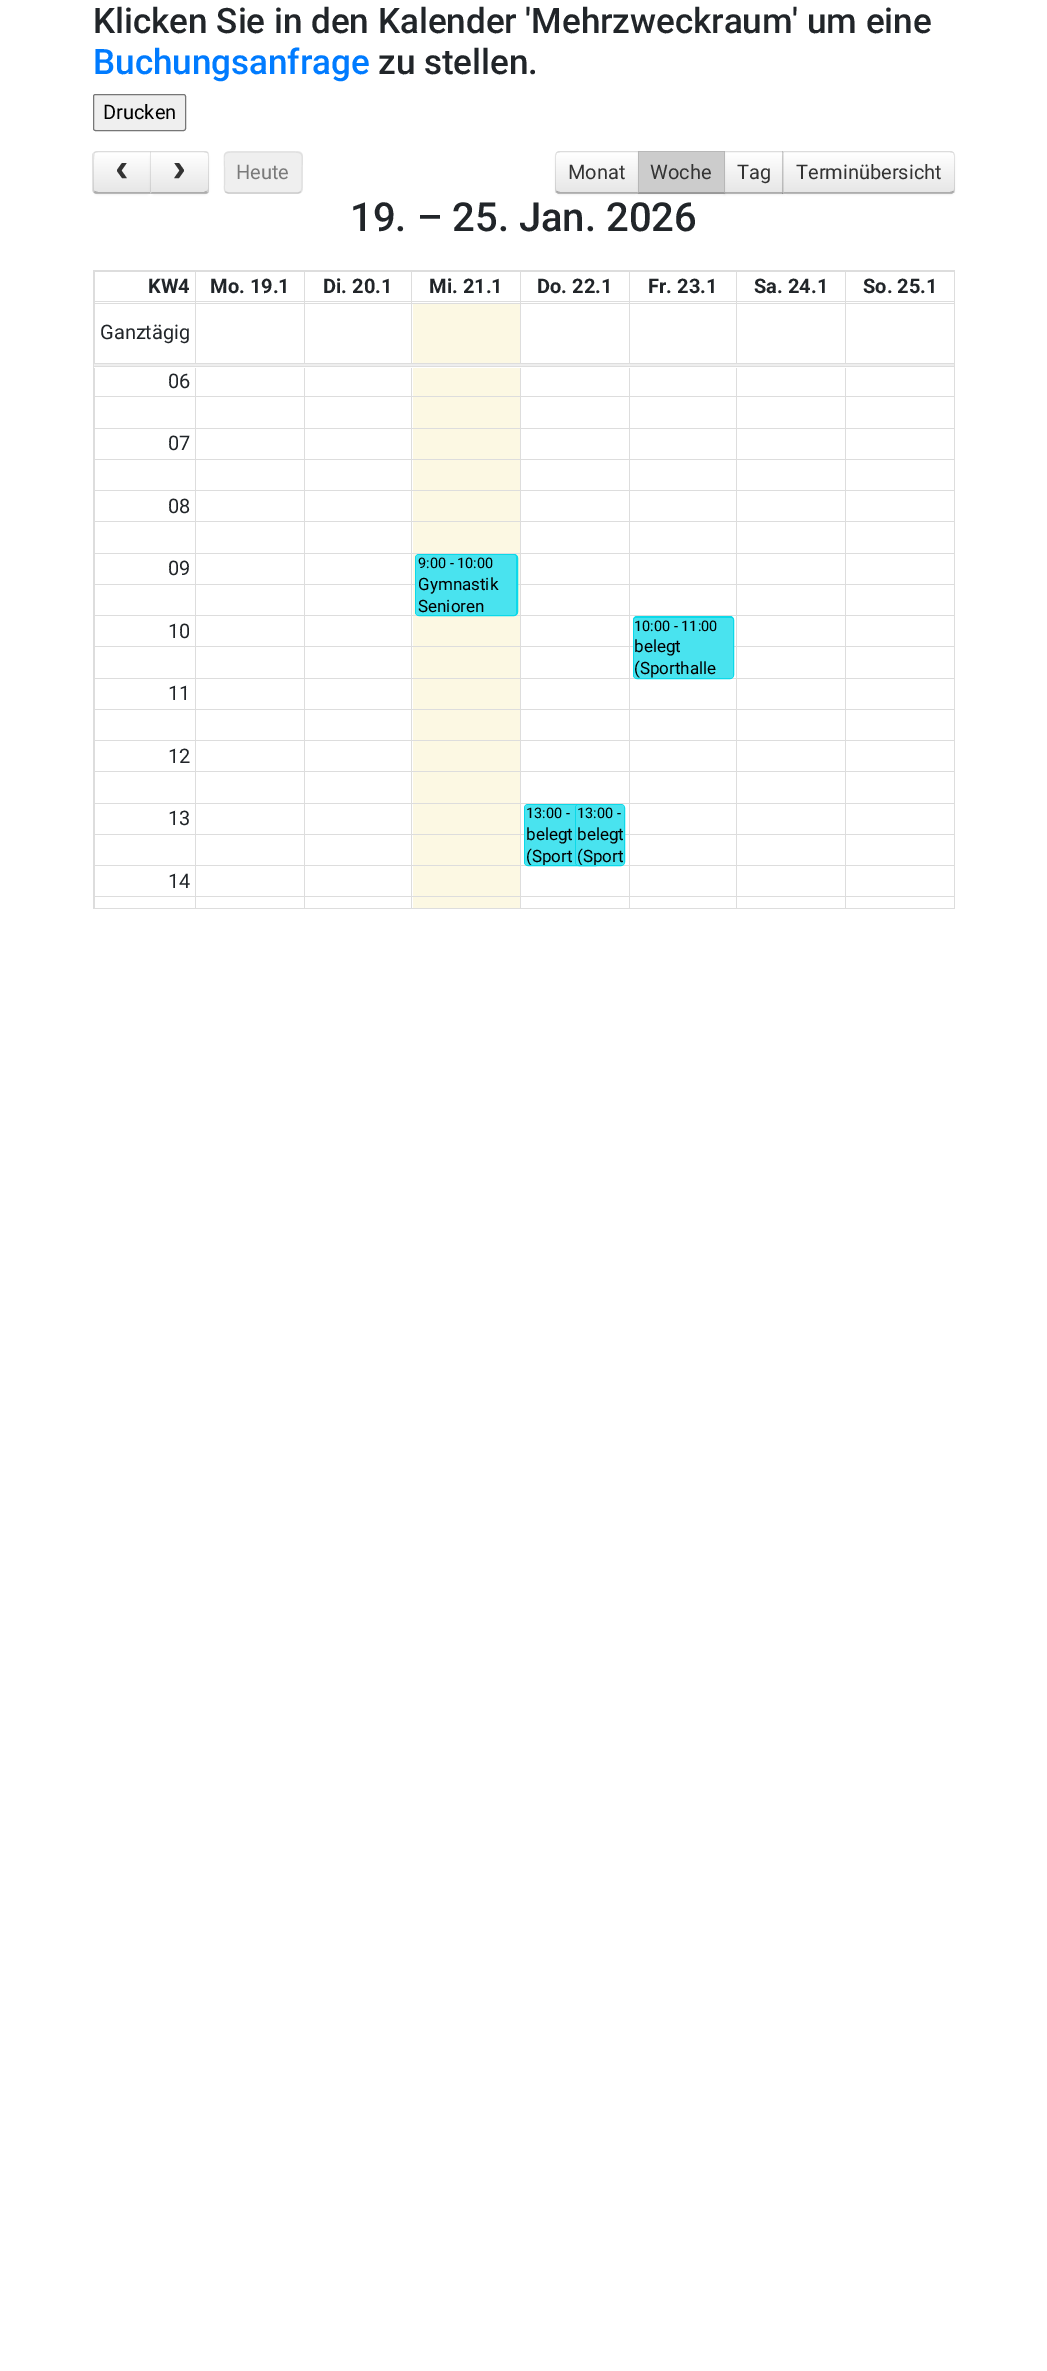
%!PS
<< /PageSize [1047 2371] /PageUsesTransparency true >> setpagedevice
/mt/moveto load def
/li/lineto load def
/ct/curveto load def
/cp/closepath load def
/fl/fill load def
/st/stroke load def
/gs/gsave load def
/gr/grestore load def
/lw/setlinewidth load def
/co { dup -16 bitshift 255 div exch dup -8 bitshift 255 and 255 div exch 255 and 255 div setrgbcolor } def
/fn { [ exch dup neg 0 0 3 -1 roll 0 0 ] selectfont } def
/tx { co fn moveto show } def
/bx { co rectfill } def
/al { dup .setfillconstantalpha .setstrokeconstantalpha } def
/rr { 5 dict begin { /r /h /w /y /x } { exch def } forall
  x r add y moveto x w add y 2 copy h add r arct x w add y h add x 1 index r arct
  x y h add x y r arct x y 2 copy exch w add exch r arct closepath end } def
/sh { 12 dict begin { /a /b /q /h /w /y /x } { exch def } forall gsave /was 0 def
  9 -2 -9 { dup b mul 4 div /e exch def 1 sub .425 mul 2.718 exch exp 1 add a .99 .min exch div /now exch def
    1 1 now sub 1 was sub div sub al /was now def
    w h .min e 2 mul add 0 gt { x e sub y e sub w e 2 mul add h e 2 mul add
      q e add b .6 mul add w h .min 2 div e add .min 0 .max rr fill } if } for grestore end } def
0 .pushpdf14devicefilter
0 2371 translate 1 -1 scale
4 setmiterlimit
0 0 1047 2371 16#FFFFFF bx
16#EFEFEF co
93.5 94.5 92 36 2 rr gs fl gr
16#767676 co
st
16#000000 co
93 153 58 42 5 1 .05 sh
16#F5F5F5 co
98 151 mt 151 151 li 151 194 li 98 194 li 95 194 93 192 93 189 ct 93 156 li 93 153 95 151 98 151 ct cp fl
gs
98 151 mt 151 151 li 151 194 li 98 194 li 95 194 93 192 93 189 ct 93 156 li 93 153 95 151 98 151 ct cp clip newpath
gs 93 153 mt 150 153 li 150 193 li 93 193 li cp clip newpath
<< /ShadingType 2 /ColorSpace /DeviceRGB /Coords [122 153 122 193] /Extend [true true] /Function << /FunctionType 2 /Domain [0 1] /C0 [1 1 1] /C1 [.902 .902 .902] /N 1 >> >> shfill gr
gr
0.1 al
16#000000 co
98 152 mt 96 152 95 153 95 153 ct 94 152 li 96 151 li 151 151 li 150 152 li cp fl
0.25 al
96 194 mt 94 193 li 95 191 li 98 192 li 150 192 li 151 194 li cp fl
0.1 al
92 154 mt 94 152 li 95 153 li 93 155 94 187 94 190 ct 95 191 li 94 193 li 92 191 li cp fl
1 al
150 153 59 42 5 1 .05 sh
16#F5F5F5 co
150 151 mt 204 151 li 207 151 209 153 209 156 ct 209 189 li 209 192 207 194 204 194 ct 150 194 li cp fl
gs
150 151 mt 204 151 li 207 151 209 153 209 156 ct 209 189 li 209 192 207 194 204 194 ct 150 194 li cp clip newpath
gs 150 153 mt 209 153 li 209 193 li 150 193 li cp clip newpath
<< /ShadingType 2 /ColorSpace /DeviceRGB /Coords [179 153 179 193] /Extend [true true] /Function << /FunctionType 2 /Domain [0 1] /C0 [1 1 1] /C1 [.902 .902 .902] /N 1 >> >> shfill gr
gr
0.1 al
16#000000 co
151 152 mt 150 151 li 206 151 li 208 152 li 207 153 li 204 152 li cp fl
209 191 mt 208 193 li 206 191 li 207 191 208 190 208 189 ct 208 156 li 208 155 208 154 207 153 ct 208 152 li 209 154 li cp fl
0.25 al
206 194 mt 150 194 li 152 192 li 204 192 li 206 191 li 208 193 li cp fl
0.1 al
150 194 mt 152 192 li 151 192 li 151 152 li 150 151 li cp fl
1 al
16#EFEFEF co
224 151 79 43 5 rr fl
16#CACACA co
1.2 lw
300.5 192 mt 298 193 li 228.5 193 li 225.5 192 li st
0.1 al
16#595959 co
225.5 192 mt 223.5 189.5 224.5 185.5 224.5 183.5 ct 224.5 172.5 li 224.5 151 220 152 240 152 ct 286 152 li 306 152 302 151 302 172.5 ct 302 183.5 li 302 185.5 302.5 189.5 300.5 192 ct st
1 al
16#000000 co
555 153 84 42 5 1 .05 sh
16#F5F5F5 co
560 151 mt 639 151 li 639 194 li 560 194 li 557 194 555 192 555 189 ct 555 156 li 555 153 557 151 560 151 ct cp fl
gs
560 151 mt 639 151 li 639 194 li 560 194 li 557 194 555 192 555 189 ct 555 156 li 555 153 557 151 560 151 ct cp clip newpath
gs 555 153 mt 638 153 li 638 193 li 555 193 li cp clip newpath
<< /ShadingType 2 /ColorSpace /DeviceRGB /Coords [597 153 597 193] /Extend [true true] /Function << /FunctionType 2 /Domain [0 1] /C0 [1 1 1] /C1 [.902 .902 .902] /N 1 >> >> shfill gr
gr
0.1 al
16#000000 co
560 152 mt 557 153 li 556 153 li 558 151 li 639 151 li 638 152 li cp fl
639 151 mt 638 152 li 638 192 li 637 192 li 639 194 li cp fl
0.25 al
639 194 mt 558 194 li 556 192 li 557 191 li 560 192 li 637 192 li cp fl
0.1 al
555 156 mt 555 189 li 555 190.5 555.5 191.5 556.5 192.5 ct 557.5 191.5 li 556 189.5 li 556 155.5 li 557 153.5 li 556.5 152.5 li 555.5 153.5 555 154.5 555 156 ct cp fl
1 al
724 153 60 42 0 1 .05 sh
725 151 58 42 16#F5F5F5 bx
gs 725 153 mt 783 153 li 783 193 li 725 193 li cp clip newpath
<< /ShadingType 2 /ColorSpace /DeviceRGB /Coords [754 153 754 193] /Extend [true true] /Function << /FunctionType 2 /Domain [0 1] /C0 [1 1 1] /C1 [.902 .902 .902] /N 1 >> >> shfill gr
16#DDDDDD co
724 151 mt 784 151 li 782 152 li 725 152 li cp fl
0.1 al
16#000000 co
784 151 mt 784 194 li 782 192 li 782 152 li cp fl
0.25 al
784 194 mt 724 194 li 725 192 li 782 192 li cp fl
1 al
638 153 87 42 0 1 .05 sh
638 151 87 43 16#CCCCCC bx
16#B8B8B8 co
638 151 mt 725 151 li 724 152 li 639 152 li cp fl
0.1 al
16#000000 co
725 151 mt 725 194 li 724 192 li 724 152 li cp fl
0.25 al
725 194 mt 638 194 li 639 192 li 724 192 li cp fl
0.1 al
638 194 mt 638 151 li 639 152 li 639 192 li cp fl
1 al
783 153 172 42 5 1 .05 sh
16#F5F5F5 co
783 151 mt 950 151 li 953 151 955 153 955 156 ct 955 189 li 955 192 953 194 950 194 ct 783 194 li cp fl
gs
783 151 mt 950 151 li 953 151 955 153 955 156 ct 955 189 li 955 192 953 194 950 194 ct 783 194 li cp clip newpath
gs 783 153 mt 955 153 li 955 193 li 783 193 li cp clip newpath
<< /ShadingType 2 /ColorSpace /DeviceRGB /Coords [869 153 869 193] /Extend [true true] /Function << /FunctionType 2 /Domain [0 1] /C0 [1 1 1] /C1 [.902 .902 .902] /N 1 >> >> shfill gr
gr
0.1 al
16#000000 co
784 152 mt 784 153 li 782 151 li 952 151 li 954 153 li 953 153 li 950 152 li cp fl
955 189 mt 955 156 li 955 154.5 954.5 153.5 953.5 152.5 ct 953 153.5 li 954 155.5 li 954 189.5 li 952.5 191.5 li 953.5 192.5 li 954.5 191.5 955 190.5 955 189 ct cp fl
0.25 al
954 192 mt 952 194 li 782 194 li 784 192 li 950 192 li 953 191 li cp fl
0.1 al
782 194 mt 784 192 li 784 153 li 782 151 li cp fl
1 al
93 270 862 1 16#DDDDDD bx
93 301 862 1 16#DDDDDD bx
954 301 1 608 16#DDDDDD bx
954 270 1 33 16#DDDDDD bx
93 908 862 1 16#DDDDDD bx
93 301 1 608 16#DDDDDD bx
93 270 1 33 16#DDDDDD bx
845 271 110 1 16#DDDDDD bx
845 271 1 32 16#DDDDDD bx
736 271 110 1 16#DDDDDD bx
736 271 1 32 16#DDDDDD bx
629 271 109 1 16#DDDDDD bx
629 271 1 32 16#DDDDDD bx
520 271 110 1 16#DDDDDD bx
520 271 1 32 16#DDDDDD bx
411 271 110 1 16#DDDDDD bx
411 271 1 32 16#DDDDDD bx
304 271 109 1 16#DDDDDD bx
304 271 1 32 16#DDDDDD bx
195 271 110 1 16#DDDDDD bx
195 271 1 32 16#DDDDDD bx
94 271 102 1 16#DDDDDD bx
94 271 1 32 16#DDDDDD bx
845 303 110 1 16#DDDDDD bx
94 363 860 1 16#DDDDDD bx
845 303 1 61 16#DDDDDD bx
736 303 110 1 16#DDDDDD bx
736 303 1 61 16#DDDDDD bx
629 303 109 1 16#DDDDDD bx
629 303 1 61 16#DDDDDD bx
520 303 110 1 16#DDDDDD bx
520 303 1 61 16#DDDDDD bx
411 303 110 1 16#DDDDDD bx
411 303 1 61 16#DDDDDD bx
304 303 109 1 16#DDDDDD bx
304 303 1 61 16#DDDDDD bx
195 303 110 1 16#DDDDDD bx
195 303 1 61 16#DDDDDD bx
94 303 102 1 16#DDDDDD bx
94 303 1 61 16#DDDDDD bx
413 304 107 59 16#FCF8E3 bx
94 364 860 2 16#EEEEEE bx
94 366 860 1 16#DDDDDD bx
94 368 1 540 16#DDDDDD bx
195 368 1 540 16#DDDDDD bx
304 368 1 540 16#DDDDDD bx
413 368 107 540 16#FCF8E3 bx
411 368 1 540 16#DDDDDD bx
520 368 1 540 16#DDDDDD bx
629 368 1 540 16#DDDDDD bx
736 368 1 540 16#DDDDDD bx
845 368 1 540 16#DDDDDD bx
94 396 860 1 16#DDDDDD bx
94 428 860 1 16#DDDDDD bx
94 459 860 1 16#DDDDDD bx
94 490 860 1 16#DDDDDD bx
94 521 860 1 16#DDDDDD bx
94 553 860 1 16#DDDDDD bx
94 584 860 1 16#DDDDDD bx
94 615 860 1 16#DDDDDD bx
94 646 860 1 16#DDDDDD bx
94 678 860 1 16#DDDDDD bx
94 709 860 1 16#DDDDDD bx
94 740 860 1 16#DDDDDD bx
94 771 860 1 16#DDDDDD bx
94 803 860 1 16#DDDDDD bx
94 834 860 1 16#DDDDDD bx
94 865 860 1 16#DDDDDD bx
94 896 860 1 16#DDDDDD bx
16#0CD9E9 co
415.5 554.5 102 61 3.5 rr gs fl gr
1 lw
st
16#49E3EF co
416 555 100 60 2.5 rr fl
16#0CD9E9 co
633.5 616.5 100 62 3.5 rr gs fl gr
st
16#49E3EF co
634 618 99 60 2.5 rr fl
16#0CD9E9 co
524.5 804.5 75 61 3.5 rr st
16#49E3EF co
525 805 74 60 2.5 rr fl
16#0CD9E9 co
575.5 804.5 49 61 3.5 rr st
16#49E3EF co
576 805 48 60 2.5 rr fl
(Klicken Sie in den Kalender 'Mehrzweckraum' um eine) 93 33 /Roboto-Medium 35 16#212529 tx
(Buchungsanfrage) 93 74 /Roboto-Medium 35 16#007BFF tx
(zu stellen.) 378 74 /Roboto-Medium 35 16#212529 tx
(Drucken) 103 119 /Roboto-Regular 20 16#000000 tx
gs
110 163 24 20 rectclip
(‹) 110 181 /LiberationMono-Bold 40 16#333333 tx
gr
gs
168 163 23 20 rectclip
(›) 167 181 /LiberationMono-Bold 40 16#333333 tx
gr
(Heute) 236 179 /Roboto-Regular 20 16#7A7A7A tx
(Monat) 568 179 /Roboto-Regular 20 16#333333 tx
(Woche) 650 179 /Roboto-Regular 20 16#333333 tx
(Tag) 737 179 /Roboto-Regular 20 16#333333 tx
(Terminübersicht) 796 179 /Roboto-Regular 20 16#333333 tx
(19. – 25. Jan. 2026) 350 231 /Roboto-Medium 40 16#212529 tx
(KW4) 148 293 /Roboto-Bold 20 16#212529 tx
(Mo. 19.1) 210 293 /Roboto-Bold 20 16#212529 tx
(Di. 20.1) 323 293 /Roboto-Bold 20 16#212529 tx
(Mi. 21.1) 429 293 /Roboto-Bold 20 16#212529 tx
(Do. 22.1) 537 293 /Roboto-Bold 20 16#212529 tx
(Fr. 23.1) 648 293 /Roboto-Bold 20 16#212529 tx
(Sa. 24.1) 754 293 /Roboto-Bold 20 16#212529 tx
(So. 25.1) 863 293 /Roboto-Bold 20 16#212529 tx
(Ganztägig) 100 339 /Roboto-Regular 20 16#212529 tx
(06) 168 388 /Roboto-Regular 20 16#212529 tx
(07) 168 450 /Roboto-Regular 20 16#212529 tx
(08) 168 513 /Roboto-Regular 20 16#212529 tx
(09) 168 575 /Roboto-Regular 20 16#212529 tx
(10) 168 638 /Roboto-Regular 20 16#212529 tx
(11) 168 700 /Roboto-Regular 20 16#212529 tx
(12) 168 763 /Roboto-Regular 20 16#212529 tx
(13) 168 825 /Roboto-Regular 20 16#212529 tx
(14) 168 888 /Roboto-Regular 20 16#212529 tx
(9:00 - 10:00) 418 568 /Roboto-Regular 14.5 16#000000 tx
(Gymnastik) 418 590 /Roboto-Regular 17 16#000000 tx
(Senioren) 418 612 /Roboto-Regular 17 16#000000 tx
(10:00 - 11:00) 634 631 /Roboto-Regular 14.5 16#000000 tx
(belegt) 634 652 /Roboto-Regular 17 16#000000 tx
(\(Sporthalle) 634 674 /Roboto-Regular 17 16#000000 tx
(13:00 -) 526 818 /Roboto-Regular 14.5 16#000000 tx
(belegt) 526 840 /Roboto-Regular 17 16#000000 tx
gs
525 805 74 60 2.5 rr clip newpath
(\(Sport) 526 862 /Roboto-Regular 17 16#000000 tx
gr
(13:00 -) 577 818 /Roboto-Regular 14.5 16#000000 tx
(belegt) 577 840 /Roboto-Regular 17 16#000000 tx
gs
576 805 48 60 2.5 rr clip newpath
(\(Sport) 577 862 /Roboto-Regular 17 16#000000 tx
gr
.poppdf14devicefilter showpage
